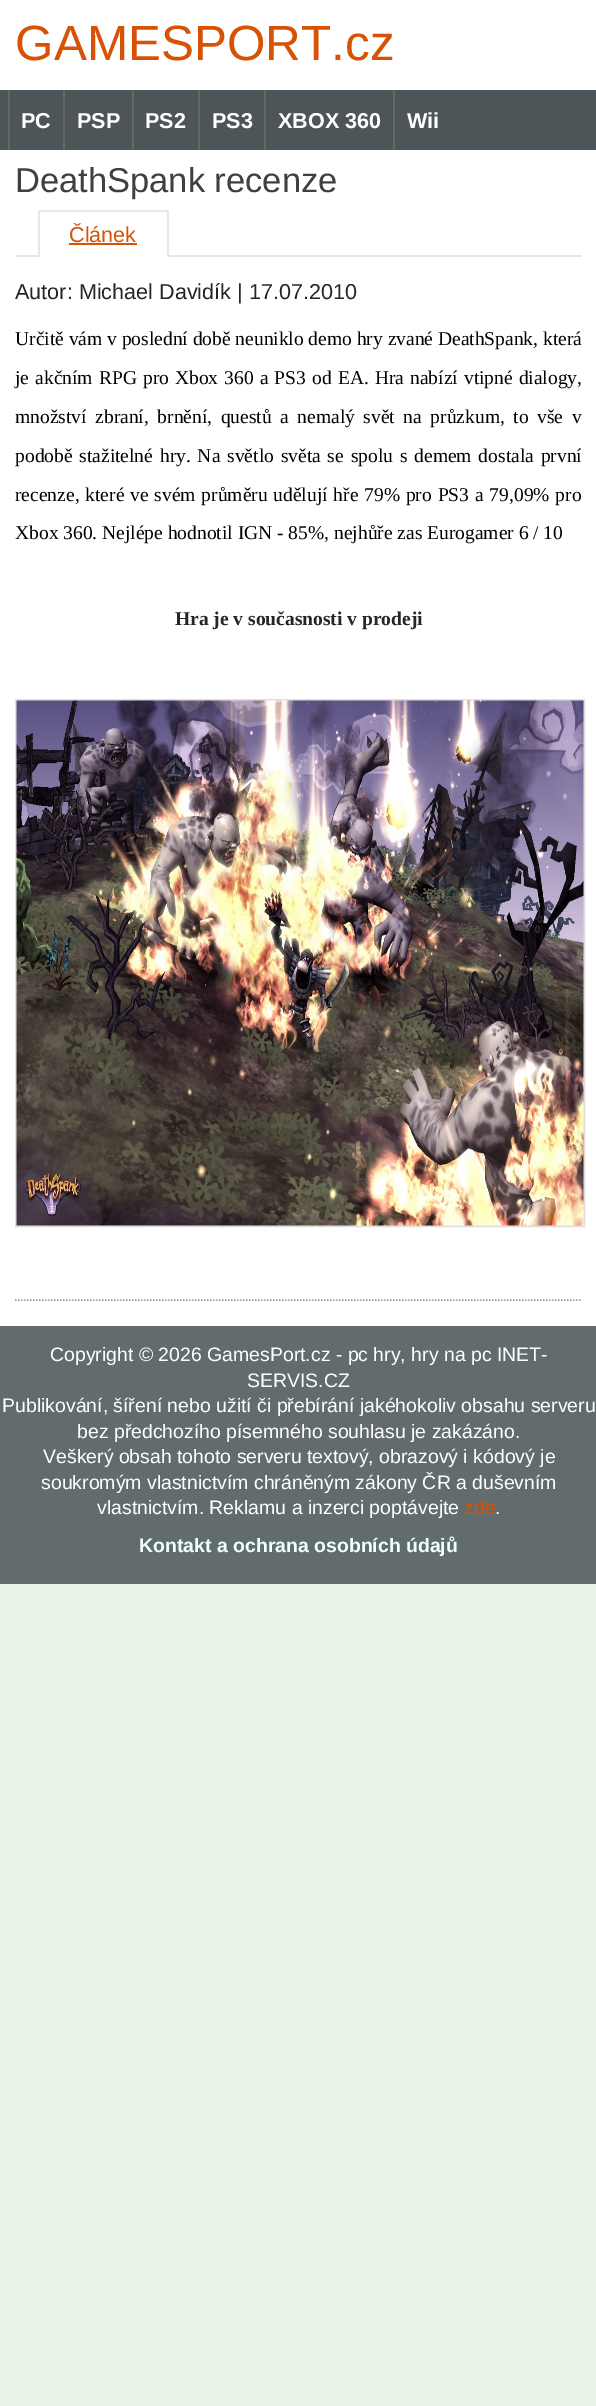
%!PS
<< /PageSize [596 2406] >> setpagedevice
/mt/moveto load def
/li/lineto load def
/st/stroke load def
/lw/setlinewidth load def
/co { dup -16 bitshift 255 div exch dup -8 bitshift 255 and 255 div exch 255 and 255 div setrgbcolor } def
/fn { [ exch dup neg 0 0 3 -1 roll 0 0 ] selectfont } def
/tx { co fn moveto show } def
/bx { co rectfill } def
/im { 5 dict begin { /h /w /y /x /name } { exch def } forall
  gsave x y translate w h scale
  w h 8 [w 0 0 h 0 0] name (r) file false 3 colorimage grestore end } def
0 2406 translate 1 -1 scale
4 setmiterlimit
0 0 596 2406 16#E9F4E7 bx
0 0 596 1326 16#FFFFFF bx
0 90 596 60 16#4D5558 bx
8 90 2 60 16#666666 bx
63 90 2 60 16#666666 bx
132 90 2 60 16#666666 bx
198 90 2 60 16#666666 bx
264 90 2 60 16#666666 bx
393 90 2 60 16#666666 bx
15 255 567 2 16#E7E7E7 bx
40 255 127 2 16#FFFFFF bx
38 210 130 2 16#E7E7E7 bx
167 210 2 47 16#E7E7E7 bx
38 210 2 47 16#E7E7E7 bx
69 243 68 2 16#D75205 bx
16#E2DEDF co
2 lw
16 700 568 526 rectstroke
(media/1.raw) 16 700 568 526 im
16#999999 co
1.5 lw
[1.5 1.5] 0 setdash
15 1300 mt 582 1300 li st
0 1326 596 258 16#626C6F bx
(GAMESPORT.cz) 15 60 /LiberationSans-Regular 49.5 16#D75205 tx
(PC) 21 128 /LiberationSans-Bold 21.6 16#FFFFFF tx
(PSP) 77 128 /LiberationSans-Bold 21.6 16#FFFFFF tx
(PS2) 145 128 /LiberationSans-Bold 21.6 16#FFFFFF tx
(PS3) 212 128 /LiberationSans-Bold 21.6 16#FFFFFF tx
(XBOX 360) 278 128 /LiberationSans-Bold 21.6 16#FFFFFF tx
(Wii) 407 128 /LiberationSans-Bold 21.6 16#FFFFFF tx
(DeathSpank recenze) 15 192 /LiberationSans-Regular 34.5 16#404040 tx
(Článek) 69 242 /LiberationSans-Regular 21.6 16#D75205 tx
(Autor: Michael Davidík | 17.07.2010) 15 299 /LiberationSans-Regular 21.6 16#252525 tx
(Určitě vám v poslední době neuniklo demo hry zvané DeathSpank, která) 15 345 /LiberationSerif-Regular 19.5 16#000000 tx
15 384 mt 1.25 0 32 (je akčním RPG pro Xbox 360 a PS3 od EA. Hra nabízí vtipné dialogy,) widthshow
15 423 mt 3.75 0 32 (množství zbraní, brnění, questů a nemalý svět na průzkum, to vše v) widthshow
15 462 mt 2 0 32 (podobě stažitelné hry. Na světlo světa se spolu s demem dostala první) widthshow
15 501 mt 1 0 32 (recenze, které ve svém průměru udělují hře 79% pro PS3 a 79,09% pro) widthshow
(Xbox 360. Nejlépe hodnotil IGN - 85%, nejhůře zas Eurogamer 6 / 10) 15 539 /LiberationSerif-Regular 19.5 16#000000 tx
(Hra je v současnosti v prodeji) 175 625 /LiberationSerif-Bold 19.5 16#252525 tx
(Copyright © 2026 GamesPort.cz - pc hry, hry na pc INET-) 50 1361 /LiberationSans-Regular 19.45 16#FFFFFF tx
(SERVIS.CZ) 247 1387 /LiberationSans-Regular 19.45 16#FFFFFF tx
(Publikování, šíření nebo užití či přebírání jakéhokoliv obsahu serveru) 2 1412 /LiberationSans-Regular 19.45 16#FFFFFF tx
(bez předchozího písemného souhlasu je zakázáno.) 77 1438 /LiberationSans-Regular 19.45 16#FFFFFF tx
(Veškerý obsah tohoto serveru textový, obrazový i kódový je) 43 1463 /LiberationSans-Regular 19.45 16#FFFFFF tx
(soukromým vlastnictvím chráněným zákony ČR a duševním) 41 1489 /LiberationSans-Regular 19.45 16#FFFFFF tx
(vlastnictvím. Reklamu a inzerci poptávejte) 97 1514 /LiberationSans-Regular 19.45 16#FFFFFF tx
(zde) 464 1514 /LiberationSans-Regular 19.45 16#D75205 tx
(.) 495 1514 /LiberationSans-Regular 19.45 16#FFFFFF tx
(Kontakt a ochrana osobních údajů) 139 1552 /LiberationSans-Bold 19.45 16#F0FFFF tx
showpage
